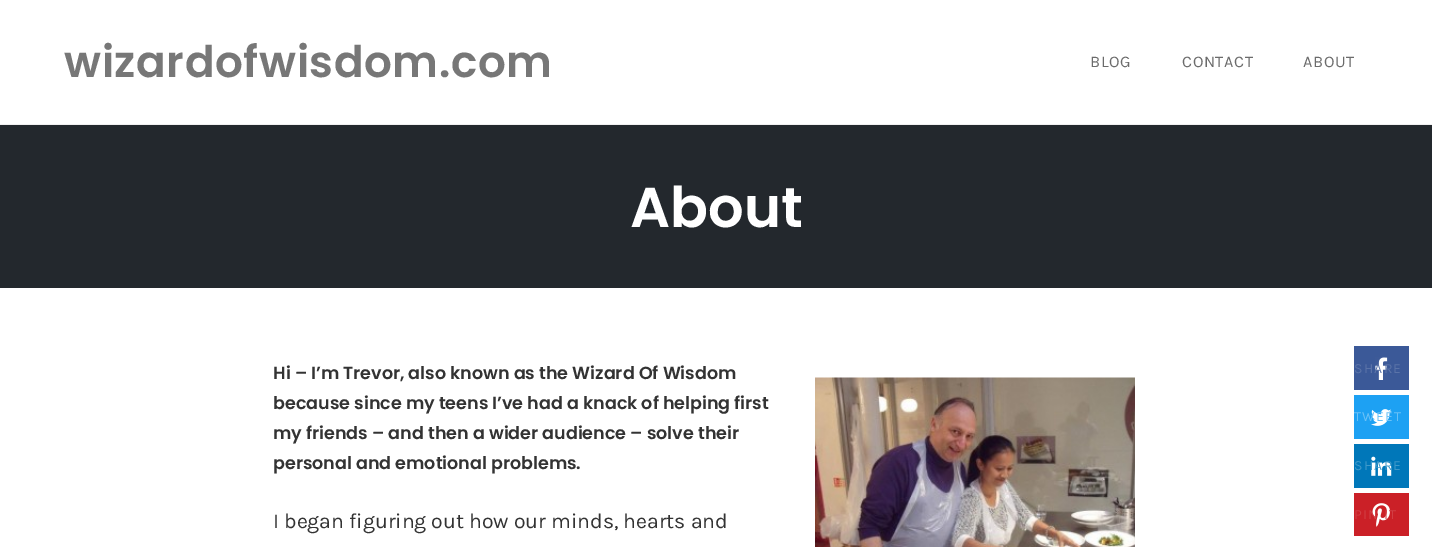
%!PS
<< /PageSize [1432 547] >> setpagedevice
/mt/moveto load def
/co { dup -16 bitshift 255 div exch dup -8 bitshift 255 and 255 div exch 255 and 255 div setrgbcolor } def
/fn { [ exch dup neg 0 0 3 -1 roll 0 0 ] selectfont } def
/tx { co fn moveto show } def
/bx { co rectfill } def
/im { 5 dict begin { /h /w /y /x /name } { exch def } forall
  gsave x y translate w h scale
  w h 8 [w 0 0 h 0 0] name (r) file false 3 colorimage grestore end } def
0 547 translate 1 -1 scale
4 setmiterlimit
0 0 1432 547 16#FFFFFF bx
0 124 1432 1 16#F0F0F0 bx
0 125 1432 163 16#23282D bx
(media/1.raw) 815 377 320 170 im
1354 346 55 44 16#3B5998 bx
(media/2.raw) 1375 357 13 23 im
1354 395 55 44 16#1DA1F3 bx
(media/3.raw) 1371 409 21 17 im
1354 444 55 44 16#0077B9 bx
(media/4.raw) 1371 456 21 20 im
1354 493 55 43 16#CB2027 bx
(media/5.raw) 1372 503 18 24 im
/Poppins-SemiBold 43.75 fn
16#777777 co
64 77 mt .6 0 (wizardofwisdom.com) ashow
/Karla-Regular 16.25 fn
16#6B6B6B co
1090 67 mt .6 0 (BLOG) ashow
1182 67 mt .6 0 (CONTACT) ashow
1303 67 mt .6 0 (ABOUT) ashow
(About) 630 227 /Poppins-SemiBold 56 16#FFFFFF tx
(Hi – I’m Trevor, also known as the Wizard Of Wisdom) 273 379 /Poppins-SemiBold 17.5 16#333333 tx
(because since my teens I’ve had a knack of helping first) 273 409 /Poppins-SemiBold 17.5 16#333333 tx
(my friends – and then a wider audience – solve their) 273 439 /Poppins-SemiBold 17.5 16#333333 tx
(personal and emotional problems.) 273 469 /Poppins-SemiBold 17.5 16#333333 tx
(I began figuring out how our minds, hearts and) 273 528 /Karla-Regular 21.25 16#333333 tx
/Karla-Regular 14 fn
16#5A73A8 co
1354 373 mt 1.25 0 (SHARE) ashow
16#6AC1F7 co
1354 421 mt 1.25 0 (TWEET) ashow
16#3F99CA co
1354 470 mt 1.25 0 (SHARE) ashow
16#D23E44 co
1354 519 mt 1.25 0 (PIN IT) ashow
showpage
